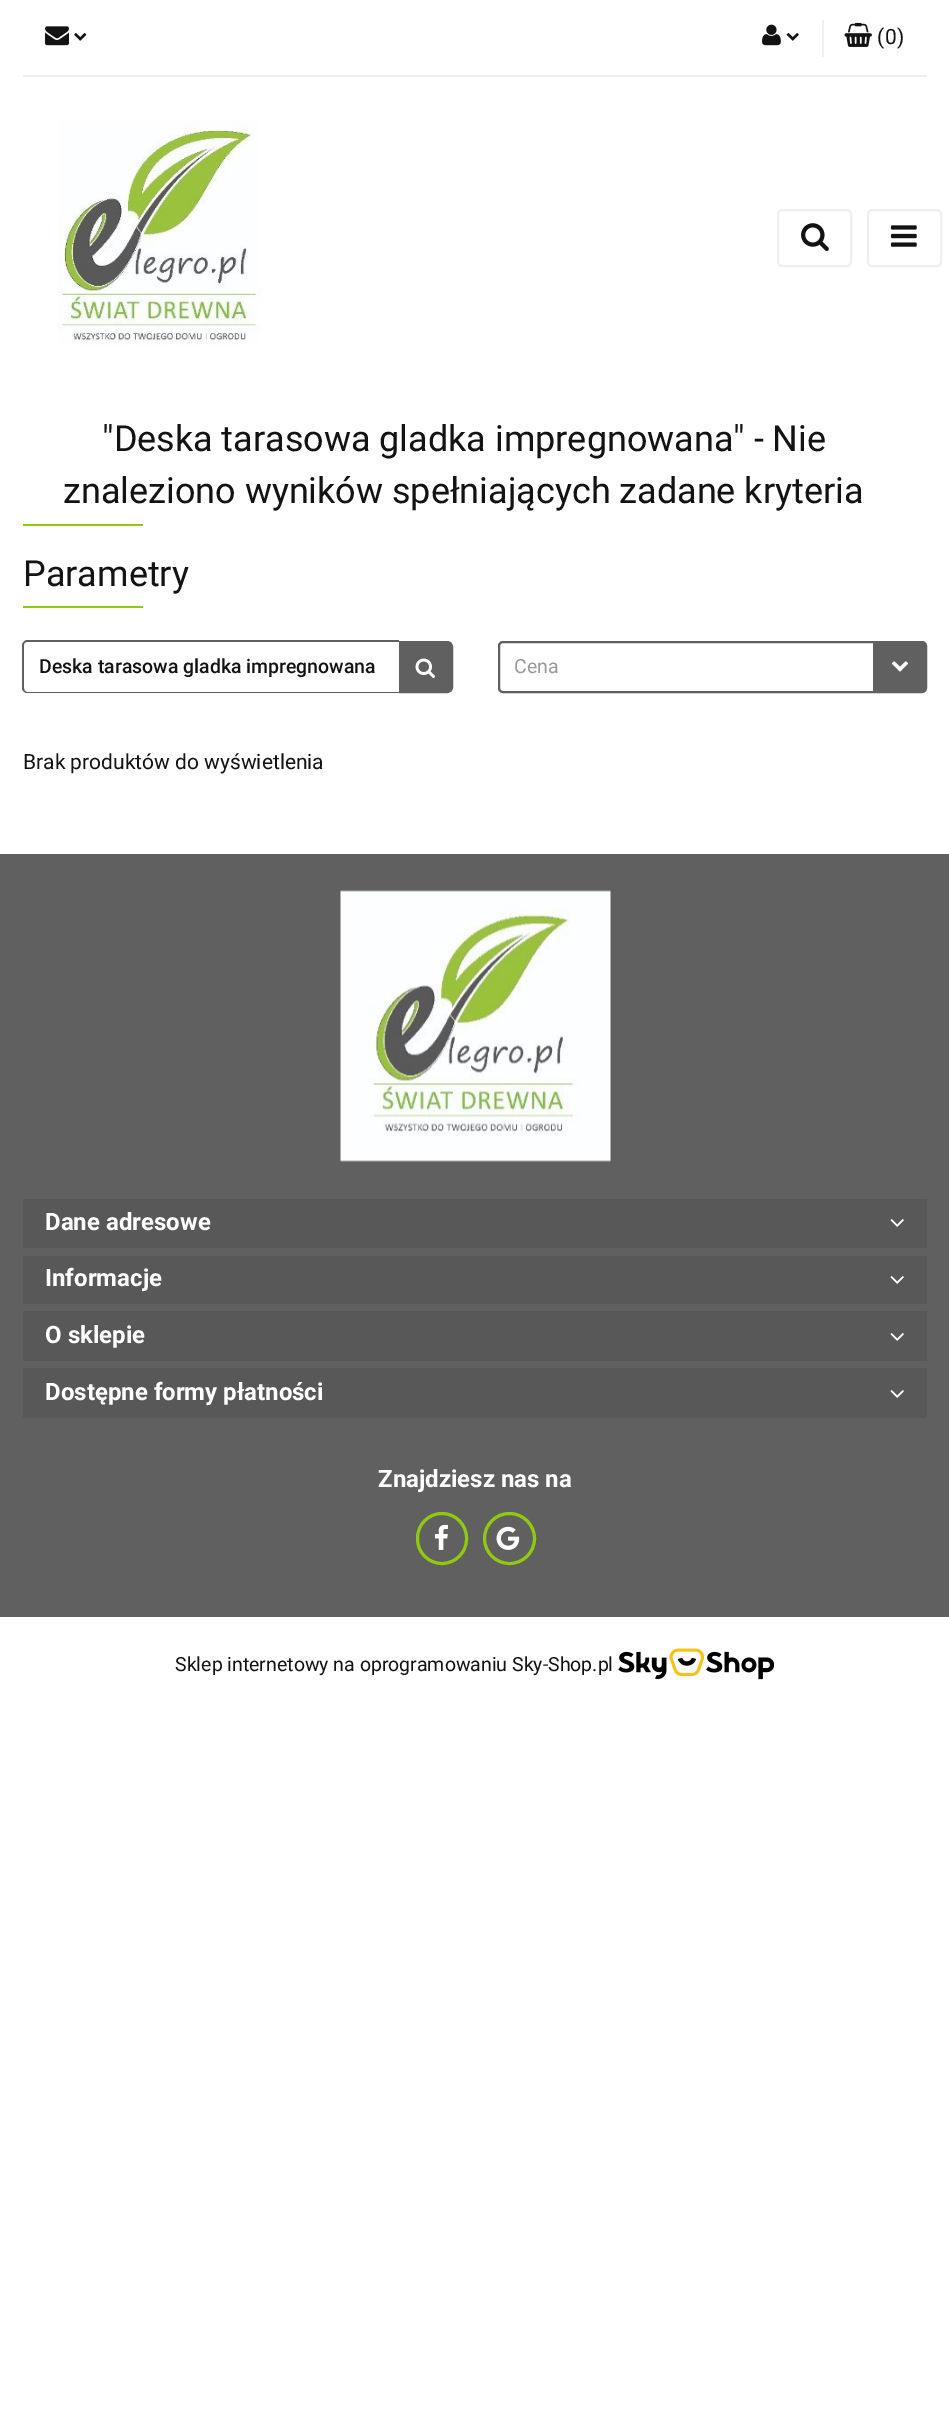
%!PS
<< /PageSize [949 2415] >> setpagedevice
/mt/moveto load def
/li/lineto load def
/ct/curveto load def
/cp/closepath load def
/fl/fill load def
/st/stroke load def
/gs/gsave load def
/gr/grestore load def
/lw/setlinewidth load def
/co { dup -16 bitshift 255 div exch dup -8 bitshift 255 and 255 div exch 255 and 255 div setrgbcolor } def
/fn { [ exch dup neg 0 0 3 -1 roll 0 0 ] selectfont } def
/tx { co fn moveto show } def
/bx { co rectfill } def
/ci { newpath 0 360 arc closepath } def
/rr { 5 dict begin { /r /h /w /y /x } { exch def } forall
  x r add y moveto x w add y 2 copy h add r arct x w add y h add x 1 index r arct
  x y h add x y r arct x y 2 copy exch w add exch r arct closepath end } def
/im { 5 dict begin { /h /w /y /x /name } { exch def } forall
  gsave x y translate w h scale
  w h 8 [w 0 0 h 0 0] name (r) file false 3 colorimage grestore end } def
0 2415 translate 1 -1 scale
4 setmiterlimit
0 0 949 2415 16#FFFFFF bx
23 75 904 2 16#EFEFEF bx
(media/1.raw) 45 26 24 20 im
(media/2.raw) 74 33 13 8 im
(media/3.raw) 762 24 19 22 im
(media/4.raw) 786 33 13 8 im
822 20 2 37 16#EFEFEF bx
(media/5.raw) 844 22 28 25 im
(media/6.raw) 58 120 203 225 im
2 lw
778 210 73 56 4 rr st
(media/7.raw) 801 223 28 28 im
868 210 73 56 4 rr st
(media/8.raw) 891 225 26 22 im
23 524 120 2 16#91C911 bx
23 606 120 2 16#91C911 bx
16#616060 co
27 640 mt 399 640 li 399 693 li 27 693 li 25 693 22 691 22 688 ct 22 645 li 22 643 25 640 27 640 ct cp 27 642 mt 399 642 li 399 692 li 27 692 li 25 692 24 690 24 688 ct 24 645 li 24 643 25 642 27 642 ct cp eofill
401.5 643.5 mt 447 643.5 li 449 643.5 450.5 645 450.5 647 ct 450.5 687 li 450.5 689 449 690.5 447 690.5 ct 401.5 690.5 li cp gs fl gr
5 lw
st
(media/9.raw) 415 658 20 20 im
2 lw
499 642 427 50 4 rr st
873 642 mt 923 642 li 924.5 642 926 643.5 926 645 ct 926 689 li 926 690.5 924.5 692 923 692 ct 873 692 li cp fl
(media/10.raw) 891 661 17 11 im
0 854 949 763 16#616060 bx
(media/11.raw) 340 890 271 272 im
23 1199 904 49 16#595858 bx
(media/12.raw) 890 1219 14 8 im
23 1256 904 48 16#595858 bx
(media/12.raw) 890 1276 14 8 im
23 1311 904 50 16#595858 bx
(media/12.raw) 890 1333 14 8 im
23 1368 904 50 16#595858 bx
(media/12.raw) 890 1390 14 8 im
16#91C911 co
3 lw
417.5 1513.5 49 50 24.5 rr st
(media/13.raw) 434 1524 14 26 im
509.5 1538.5 25 ci st
(media/14.raw) 496 1526 24 24 im
(media/15.raw) 618 1648 156 32 im
(\() 877 44 /Roboto-Regular 21 16#131313 tx
(0) 885 44 /Roboto-Regular 21 16#131313 tx
(\)) 897 44 /Roboto-Regular 21 16#131313 tx
("Deska tarasowa gladka impregnowana" - Nie) 102 451 /Roboto-Regular 36 16#131313 tx
(znaleziono wyników spełniających zadane kryteria) 63 503 /Roboto-Regular 36 16#131313 tx
(Parametry) 23 586 /Roboto-Regular 36 16#131313 tx
(Deska tarasowa gladka impregnowana) 39 673 /Roboto-Medium 19.5 16#131313 tx
gs
515 651 343 32 rectclip
(Cena) 514 673 /Roboto-Regular 19.5 16#999999 tx
gr
(Brak produktów do wyświetlenia) 23 769 /Roboto-Regular 21 16#131313 tx
(Dane adresowe) 45 1230 /Roboto-Bold 24 16#FFFFFF tx
(Informacje) 45 1286 /Roboto-Bold 24 16#FFFFFF tx
(O sklepie) 45 1343 /Roboto-Bold 24 16#FFFFFF tx
(Dostępne formy płatności) 45 1400 /Roboto-Bold 24 16#FFFFFF tx
(Znajdziesz nas na) 378 1487 /Roboto-Bold 24 16#FFFFFF tx
(Sklep internetowy na oprogramowaniu Sky-Shop.pl) 175 1671 /Roboto-Regular 19.5 16#131313 tx
showpage
